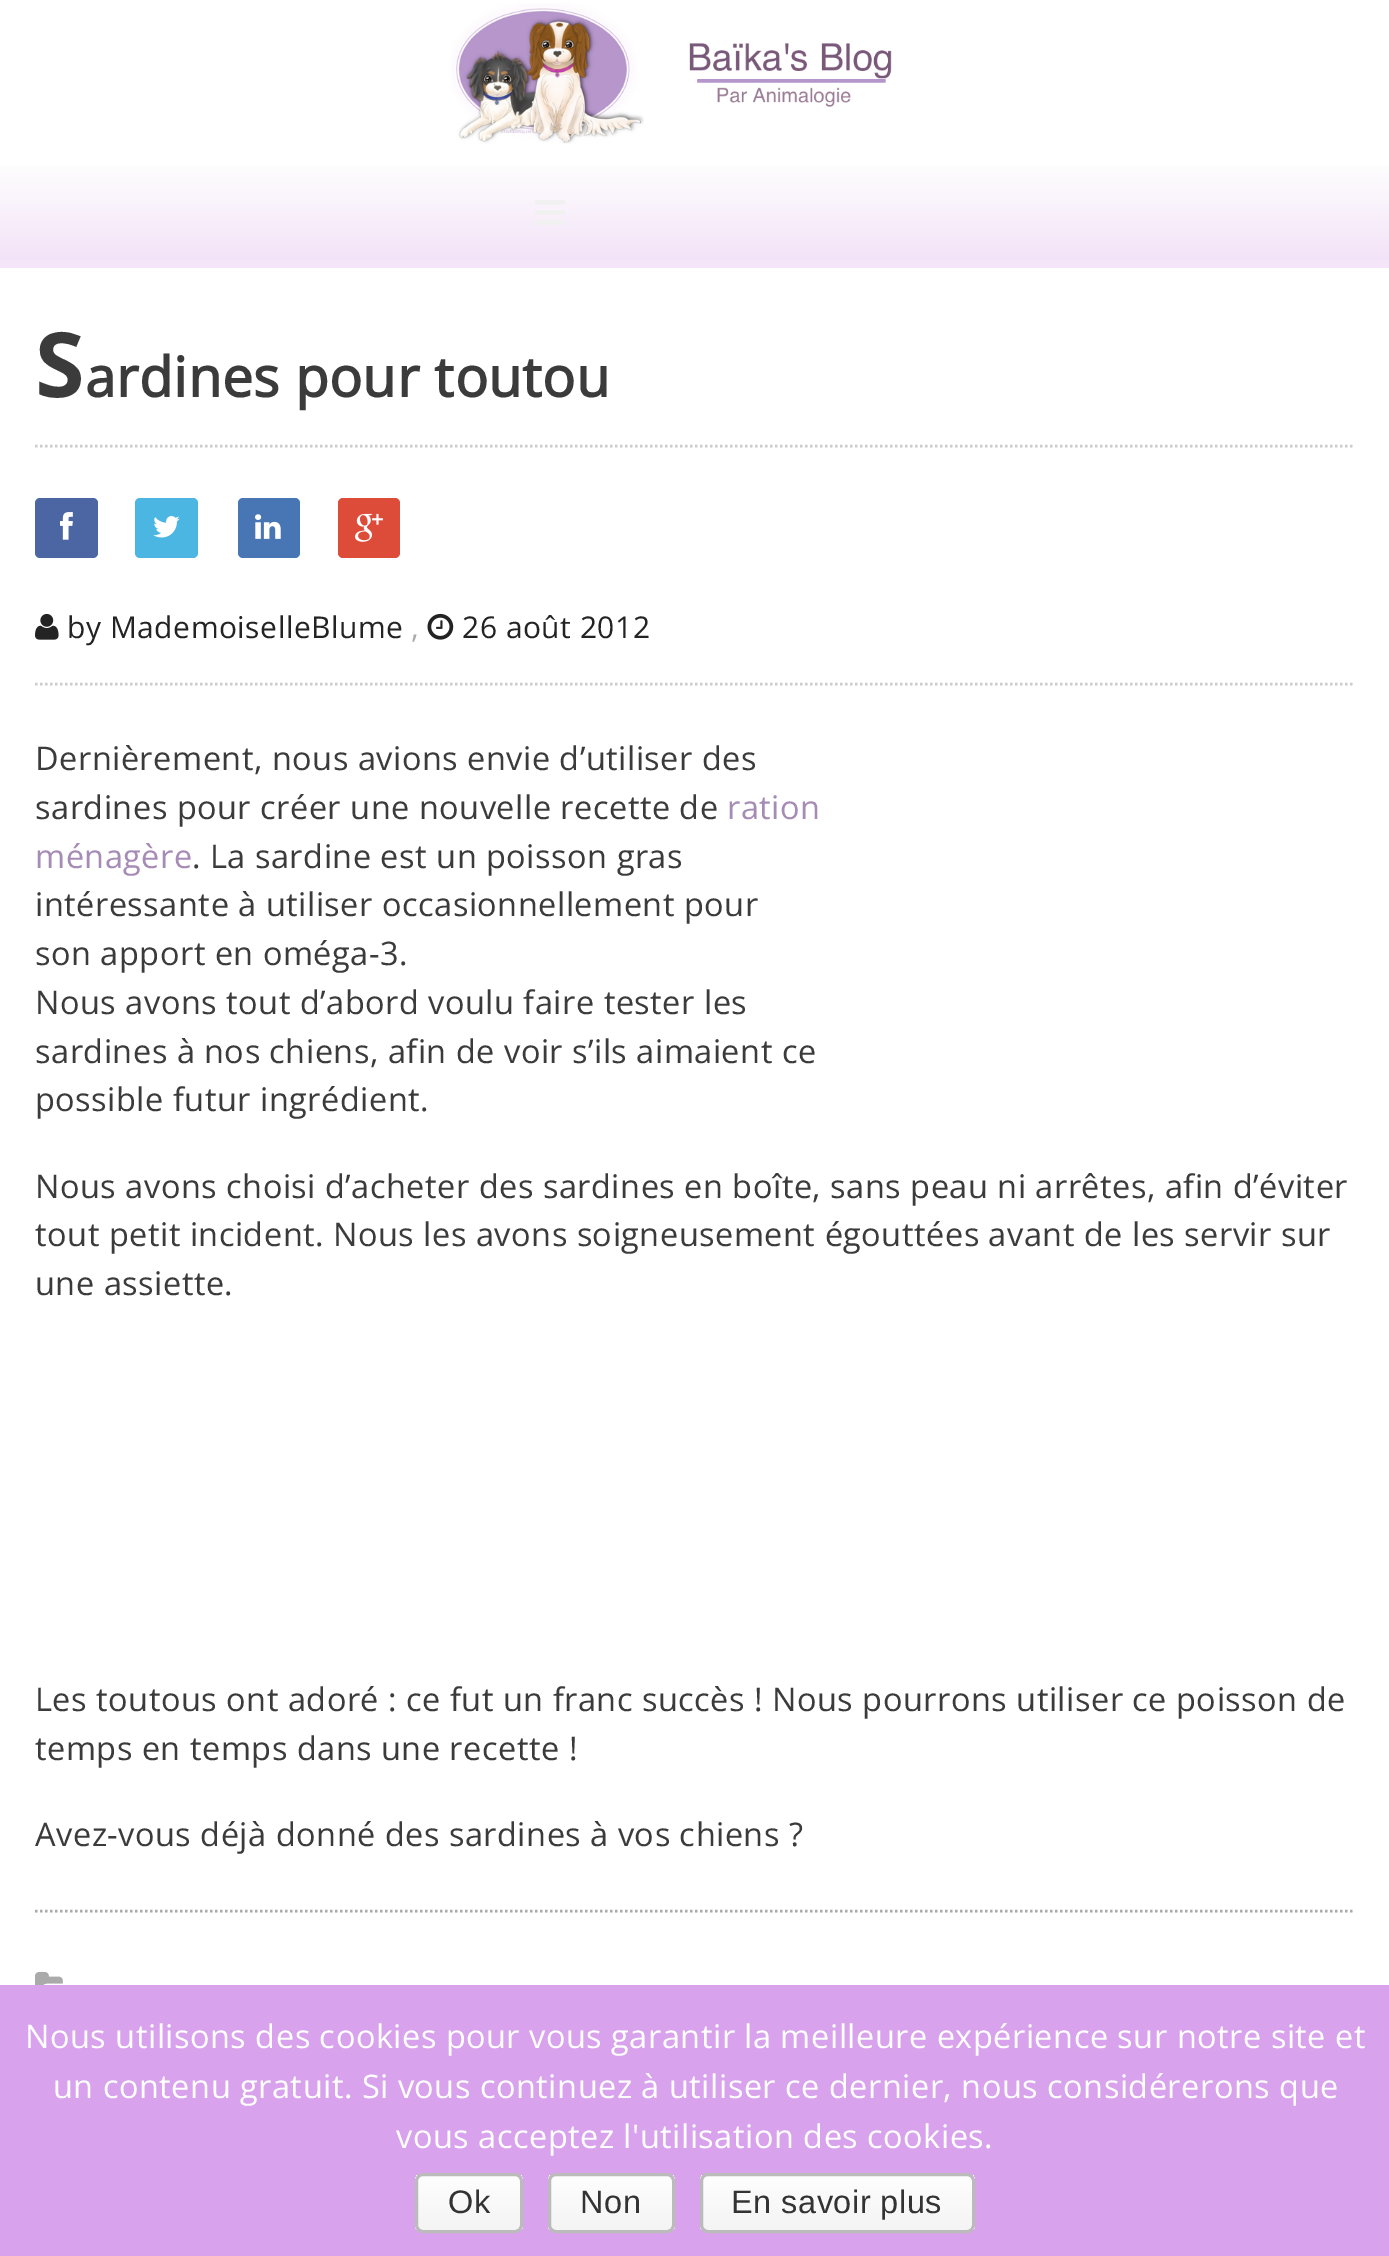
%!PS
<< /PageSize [1389 2256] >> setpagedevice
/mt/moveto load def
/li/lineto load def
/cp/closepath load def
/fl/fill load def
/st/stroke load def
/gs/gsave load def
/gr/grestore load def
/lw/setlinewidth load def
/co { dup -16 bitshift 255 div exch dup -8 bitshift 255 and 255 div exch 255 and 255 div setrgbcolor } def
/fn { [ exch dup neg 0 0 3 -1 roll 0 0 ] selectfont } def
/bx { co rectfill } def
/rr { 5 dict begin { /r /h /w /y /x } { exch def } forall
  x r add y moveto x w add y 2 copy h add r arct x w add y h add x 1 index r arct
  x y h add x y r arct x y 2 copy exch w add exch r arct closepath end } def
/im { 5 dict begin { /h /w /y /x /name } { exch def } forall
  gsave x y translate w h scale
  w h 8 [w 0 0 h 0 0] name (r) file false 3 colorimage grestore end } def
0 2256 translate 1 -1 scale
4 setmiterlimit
0 0 1389 2256 16#FFFFFF bx
(media/1.raw) 451 3 441 141 im
gs 0 166 mt 1389 166 li 1389 260 li 0 260 li cp clip newpath
<< /ShadingType 2 /ColorSpace /DeviceRGB /Coords [695 157 695 268] /Extend [true true] /Function << /FunctionType 2 /Domain [0 1] /C0 [1 1 1] /C1 [.949 .882 .969] /N 1 >> >> shfill gr
0 260 1389 8 16#F4E6F8 bx
(media/2.raw) 535 200 30 25 im
16#CCCCCC co
2.5 lw
[2.5 2.5] 0 setdash
35 446 mt 1355 446 li st
35 684 mt 1355 684 li st
16#4C66A4 co
35 498 63 60 5 rr fl
(media/3.raw) 60 512 13 28 im
16#4CB6E2 co
135 498 63 60 5 rr fl
(media/4.raw) 153 516 27 22 im
16#4875B4 co
238 498 62 60 5 rr fl
(media/5.raw) 255 514 26 25 im
16#DD4B39 co
338 498 62 60 5 rr fl
(media/6.raw) 355 513 28 29 im
(media/7.raw) 35 613 24 27 im
(media/8.raw) 427 613 27 27 im
16#AAAAAA co
35 1911 mt 1355 1911 li st
(media/9.raw) 35 1971 28 14 im
0 1985 1389 271 16#D9A2EC bx
gs
415 2173 108 60 8 rr clip newpath
gs 415 2175 mt 523 2175 li 523 2230 li 415 2230 li cp clip newpath
<< /ShadingType 2 /ColorSpace /DeviceRGB /Coords [469 2175 469 2230] /Extend [true true] /Function << /FunctionType 2 /Domain [0 1] /C0 [.996 .996 .996] /C1 [.957 .957 .957] /N 1 >> >> shfill gr
gr
16#BBBBBB co
3 lw
[] 0 setdash
416.5 2174.5 105 57 6.5 rr st
gs
548 2173 127 60 8 rr clip newpath
gs 548 2175 mt 675 2175 li 675 2230 li 548 2230 li cp clip newpath
<< /ShadingType 2 /ColorSpace /DeviceRGB /Coords [611 2175 611 2230] /Extend [true true] /Function << /FunctionType 2 /Domain [0 1] /C0 [.996 .996 .996] /C1 [.957 .957 .957] /N 1 >> >> shfill gr
gr
549.5 2174.5 124 57 6.5 rr st
gs
700 2173 275 60 8 rr clip newpath
gs 700 2175 mt 975 2175 li 975 2230 li 700 2230 li cp clip newpath
<< /ShadingType 2 /ColorSpace /DeviceRGB /Coords [838 2175 838 2230] /Extend [true true] /Function << /FunctionType 2 /Domain [0 1] /C0 [.996 .996 .996] /C1 [.957 .957 .957] /N 1 >> >> shfill gr
gr
701.5 2174.5 272 57 6.5 rr st
/NotoSans-Bold 90 fn
16#3B3B3B co
35 397 mt .5 0 (S) ashow
/OpenSans-Bold 55 fn
85 397 mt .5 0 (ardines pour toutou) ashow
/OpenSans-Regular 30 fn
16#232323 co
67 638 mt .5 0 (by MademoiselleBlume) ashow
16#AAAAAA co
411 638 mt .5 0 (,) ashow
16#232323 co
462 638 mt .5 0 (26 août 2012) ashow
/OpenSans-Regular 32.5 fn
16#3B3B3B co
35 770 mt .5 0 (Dernièrement, nous avions envie d’utiliser des) ashow
35 819 mt .5 0 (sardines pour créer une nouvelle recette de) ashow
16#A58BB6 co
727 819 mt .5 0 (ration) ashow
35 868 mt .5 0 (ménagère) ashow
16#3B3B3B co
192 868 mt .5 0 (. La sardine est un poisson gras) ashow
35 916 mt .5 0 (intéressante à utiliser occasionnellement pour) ashow
35 965 mt .5 0 (son apport en oméga-3.) ashow
35 1014 mt .5 0 (Nous avons tout d’abord voulu faire tester les) ashow
35 1063 mt .5 0 (sardines à nos chiens, afin de voir s’ils aimaient ce) ashow
35 1111 mt .5 0 (possible futur ingrédient.) ashow
35 1198 mt .5 0 (Nous avons choisi d’acheter des sardines en boîte, sans peau ni arrêtes, afin d’éviter) ashow
35 1246 mt .5 0 (tout petit incident. Nous les avons soigneusement égouttées avant de les servir sur) ashow
35 1295 mt .5 0 (une assiette.) ashow
35 1711 mt .5 0 (Les toutous ont adoré : ce fut un franc succès ! Nous pourrons utiliser ce poisson de) ashow
35 1760 mt .5 0 (temps en temps dans une recette !) ashow
35 1846 mt .5 0 (Avez-vous déjà donné des sardines à vos chiens ?) ashow
16#FFFFFF co
25 2048 mt .5 0 (Nous utilisons des cookies pour vous garantir la meilleure expérience sur notre site et) ashow
53 2098 mt .5 0 (un contenu gratuit. Si vous continuez à utiliser ce dernier, nous considérerons que) ashow
396 2148 mt .5 0 (vous acceptez l'utilisation des cookies.) ashow
/LiberationSans-Regular 32.5 fn
16#333333 co
448 2213 mt .5 0 (Ok) ashow
580 2213 mt .5 0 (Non) ashow
731 2213 mt .5 0 (En savoir plus) ashow
showpage
